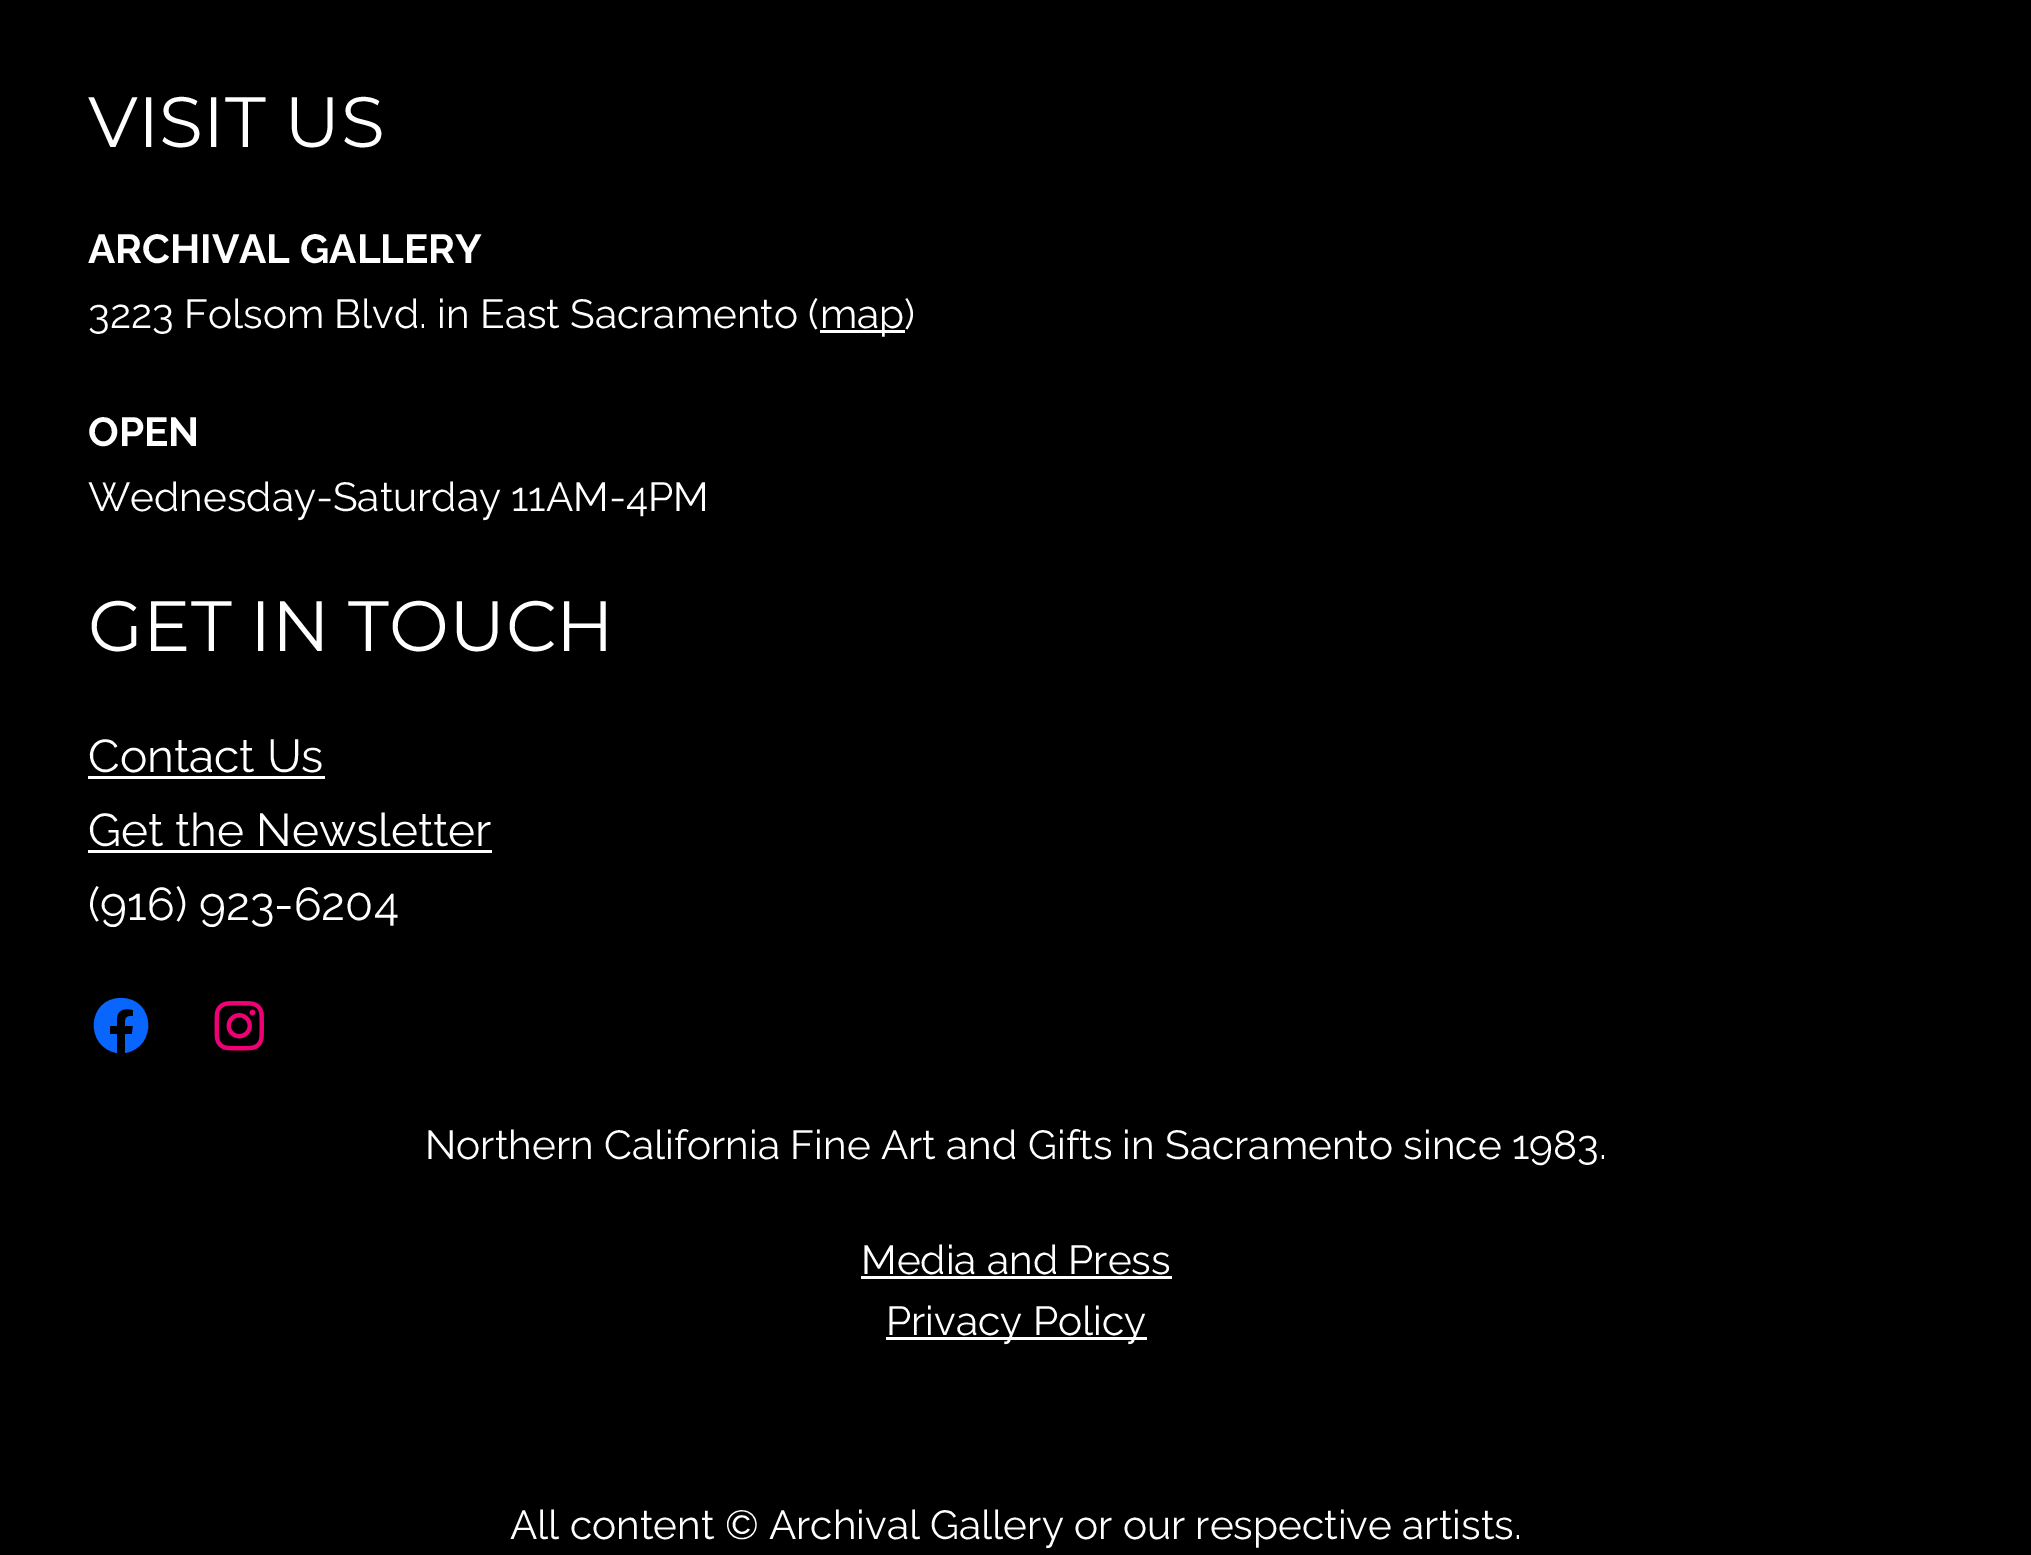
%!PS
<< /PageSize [2031 1555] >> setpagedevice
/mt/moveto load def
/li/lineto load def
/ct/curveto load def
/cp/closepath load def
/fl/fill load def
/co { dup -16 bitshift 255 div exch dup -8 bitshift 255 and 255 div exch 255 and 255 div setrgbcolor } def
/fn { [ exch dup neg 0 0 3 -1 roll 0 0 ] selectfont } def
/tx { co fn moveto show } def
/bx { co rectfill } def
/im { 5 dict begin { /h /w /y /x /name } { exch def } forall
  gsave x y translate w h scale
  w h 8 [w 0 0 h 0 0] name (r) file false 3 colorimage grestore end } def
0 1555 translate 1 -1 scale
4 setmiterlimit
0 0 2031 1555 16#000000 bx
820 330 85 3 16#FFFFFF bx
88 776 237 3 16#FFFFFF bx
88 850 404 3 16#FFFFFF bx
16#0866FF co
121 998 mt 87 998 84 1047 117 1053 ct 117 1034 li 110 1034 li 110 1026 li 117 1026 li 117 1017 li 118 1009 126 1008 133 1010 ct 133 1016 li 125 1016 125 1018 125 1026 ct 133 1026 li 132 1034 li 125 1034 li 125 1053 li 158 1047 155 998 121 998 ct cp fl
(media/1.raw) 214 1001 50 50 im
861 1276 311 3 16#FFFFFF bx
886 1337 261 3 16#FFFFFF bx
(VISIT US) 88 147 /Montserrat-Regular 71.25 16#FFFFFF tx
(ARCHIVAL GALLERY) 88 263 /Raleway-Bold 40.55 16#FFFFFF tx
(3223 Folsom Blvd. in East Sacramento \() 88 328 /Raleway-Regular 40.55 16#FFFFFF tx
(map\)) 820 328 /Raleway-Regular 40.55 16#FFFFFF tx
(OPEN) 88 446 /Raleway-Bold 40.55 16#FFFFFF tx
(Wednesday-Saturday 11AM-4PM) 88 511 /Raleway-Regular 40.55 16#FFFFFF tx
(GET IN TOUCH) 88 651 /Montserrat-Regular 71.25 16#FFFFFF tx
(Contact Us) 88 772 /Raleway-Regular 46 16#FFFFFF tx
(Get the Newsletter) 88 846 /Raleway-Regular 46 16#FFFFFF tx
(\(916\) 923-6204) 88 920 /Raleway-Regular 46 16#FFFFFF tx
(Northern California Fine Art and Gifts in Sacramento since 1983.) 425 1159 /Raleway-Regular 40.55 16#FFFFFF tx
(Media and Press) 861 1274 /Raleway-Regular 40.55 16#FFFFFF tx
(Privacy Policy) 886 1335 /Raleway-Regular 40.55 16#FFFFFF tx
(All content © Archival Gallery or our respective artists.) 510 1539 /Raleway-Regular 40.55 16#FFFFFF tx
showpage
